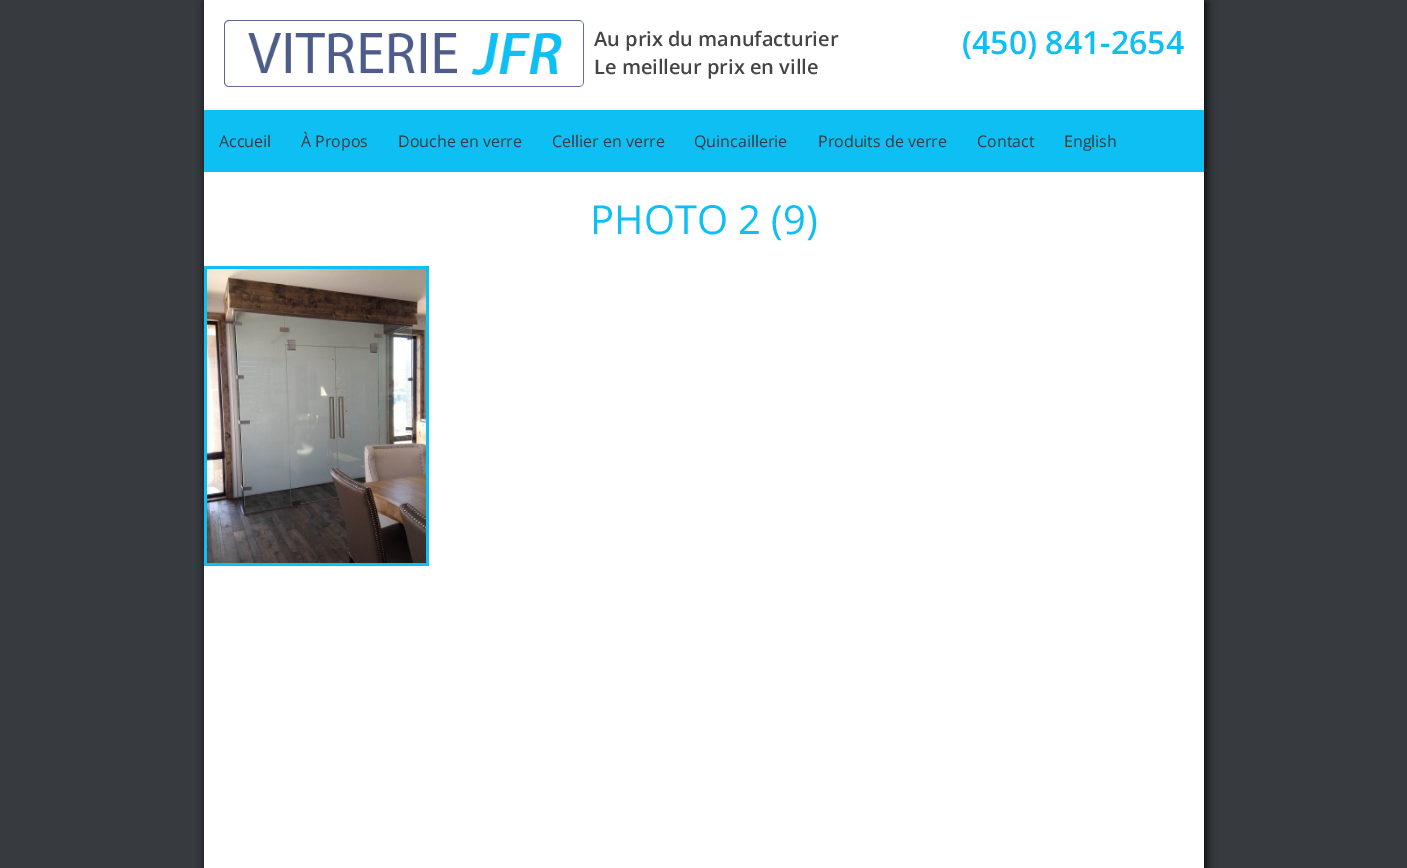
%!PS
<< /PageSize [1407 868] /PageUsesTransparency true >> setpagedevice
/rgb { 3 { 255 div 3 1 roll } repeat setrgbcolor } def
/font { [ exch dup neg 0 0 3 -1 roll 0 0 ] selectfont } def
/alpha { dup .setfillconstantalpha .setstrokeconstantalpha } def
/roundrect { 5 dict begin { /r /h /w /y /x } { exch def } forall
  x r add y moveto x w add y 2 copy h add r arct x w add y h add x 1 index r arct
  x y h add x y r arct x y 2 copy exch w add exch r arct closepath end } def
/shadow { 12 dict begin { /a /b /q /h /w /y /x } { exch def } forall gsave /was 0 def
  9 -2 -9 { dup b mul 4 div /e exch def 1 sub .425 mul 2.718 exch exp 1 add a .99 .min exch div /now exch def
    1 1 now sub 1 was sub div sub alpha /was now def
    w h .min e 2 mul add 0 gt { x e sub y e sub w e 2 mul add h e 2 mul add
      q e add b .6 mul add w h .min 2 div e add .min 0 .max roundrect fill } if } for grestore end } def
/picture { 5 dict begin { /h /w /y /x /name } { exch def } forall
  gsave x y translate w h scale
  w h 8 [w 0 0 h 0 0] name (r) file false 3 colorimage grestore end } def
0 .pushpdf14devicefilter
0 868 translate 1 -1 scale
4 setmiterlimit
55 58 63 rgb
0 0 1407 868 rectfill
0 0 0 rgb
206 2 1000 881 0 5 1 shadow
255 255 255 rgb
204 0 1000 868 rectfill
(img/1.rgb) 224 20 360 67 picture
13 191 242 rgb
204 110 1000 62 rectfill
204 266 225 300 rectfill
(img/2.rgb) 207 269 219 294 picture
/OpenSans-SemiBold 20 font
68 68 68 rgb
594 46 moveto (Au prix du manufacturier) show
594 74 moveto (Le meilleur prix en ville) show
/OpenSans-SemiBold 32 font
13 191 242 rgb
962 54 moveto (\(450\) 841-2654) show
/OpenSans-Regular 16 font
55 58 63 rgb
[
  [(Accueil) 219 147]
  [(À Propos) 301 147]
  [(Douche en verre) 398 147]
  [(Cellier en verre) 552 147]
  [(Quincaillerie) 694 147]
  [(Produits de verre) 818 147]
  [(Contact) 977 147]
  [(English) 1064 147]
] { aload pop moveto show } forall
/OpenSans-Regular 40 font
13 191 242 rgb
590 234 moveto (PHOTO 2 \(9\)) show
.poppdf14devicefilter showpage
